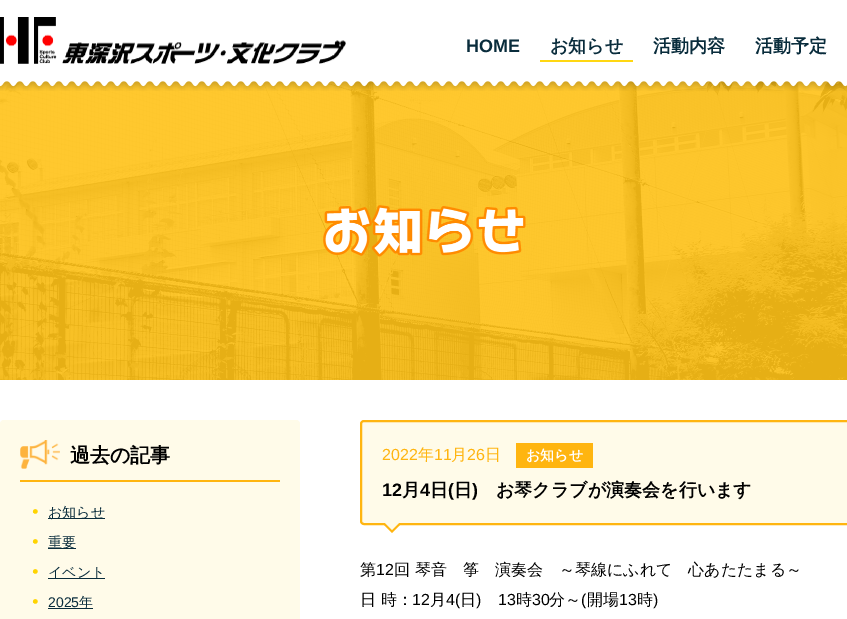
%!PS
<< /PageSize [847 619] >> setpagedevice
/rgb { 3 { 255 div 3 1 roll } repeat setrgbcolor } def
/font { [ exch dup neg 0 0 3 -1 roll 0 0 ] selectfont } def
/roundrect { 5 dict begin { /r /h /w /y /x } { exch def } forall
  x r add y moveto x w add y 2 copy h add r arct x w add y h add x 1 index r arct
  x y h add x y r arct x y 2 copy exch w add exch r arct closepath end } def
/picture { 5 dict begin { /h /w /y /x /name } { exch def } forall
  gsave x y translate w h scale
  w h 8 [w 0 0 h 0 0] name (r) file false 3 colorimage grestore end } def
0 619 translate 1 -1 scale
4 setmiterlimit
255 255 255 rgb
0 0 847 619 rectfill
(img/3.rgb) 0 81 847 299 picture
(img/1.rgb) 0 80 847 11 picture
(img/2.rgb) 0 17 346 47 picture
255 215 18 rgb
540 60 93 2 rectfill
(img/4.rgb) 323 205 203 52 picture
255 251 233 rgb
0 420 300 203 4 roundrect fill
(img/5.rgb) 20 440 40 29 picture
[
  [20 480 260 2 255 181 16]
  [48 518 57 1 9 44 60]
  [48 548 28 1 9 44 60]
  [48 578 57 1 9 44 60]
  [48 608 45 1 9 44 60]
] { aload pop rgb rectfill } forall
255 251 233 rgb
361 421 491 103 3 roundrect gsave fill grestore
255 181 16 rgb
2 setlinewidth
stroke
516 443 77 25 rectfill
382 523 moveto 402 523 lineto 392 533 lineto closepath fill
255 251 233 rgb
384 522 moveto 400 522 lineto 392 530 lineto closepath fill
/LiberationSans-Bold 18 font
9 44 60 rgb
466 52 moveto (HOME) show
/WenQuanYiZenHei-Bold 18 font
[
  [(お知らせ) 550 52]
  [(活動内容) 653 52]
  [(活動予定) 755 52]
] { aload pop moveto show } forall
/WenQuanYiZenHei-Bold 20 font
0 0 0 rgb
70 462 moveto (過去の記事) show
/WenQuanYiZenHei-Medium 30 font
255 212 0 rgb
20 522 moveto (・) show
/WenQuanYiZenHei-Medium 14 font
9 44 60 rgb
48 517 moveto (お知らせ) show
/WenQuanYiZenHei-Medium 30 font
255 212 0 rgb
20 552 moveto (・) show
/WenQuanYiZenHei-Medium 14 font
9 44 60 rgb
48 547 moveto (重要) show
/WenQuanYiZenHei-Medium 30 font
255 212 0 rgb
20 582 moveto (・) show
/WenQuanYiZenHei-Medium 14 font
9 44 60 rgb
48 577 moveto (イベント) show
/WenQuanYiZenHei-Medium 30 font
255 212 0 rgb
20 612 moveto (・) show
/LiberationSans-Regular 14 font
9 44 60 rgb
48 607 moveto (2025) show
/WenQuanYiZenHei-Medium 14 font
79 607 moveto (年) show
/LiberationSans-Regular 16 font
255 181 16 rgb
382 460 moveto (2022) show
/WenQuanYiZenHei-Medium 16 font
418 460 moveto (年) show
/LiberationSans-Regular 16 font
434 460 moveto (11) show
/WenQuanYiZenHei-Medium 16 font
451 460 moveto (月) show
/LiberationSans-Regular 16 font
467 460 moveto (26) show
/WenQuanYiZenHei-Medium 16 font
485 460 moveto (日) show
/WenQuanYiZenHei-Bold 14 font
255 255 255 rgb
526 460 moveto (お知らせ) show
/LiberationSans-Bold 18 font
0 0 0 rgb
382 496 moveto (12) show
/WenQuanYiZenHei-Bold 18 font
402 496 moveto (月) show
/LiberationSans-Bold 18 font
420 496 moveto (4) show
/WenQuanYiZenHei-Bold 18 font
430 496 moveto (日) show
/LiberationSans-Bold 18 font
448 496 moveto (\() show
/WenQuanYiZenHei-Bold 18 font
454 496 moveto (日) show
/LiberationSans-Bold 18 font
472 496 moveto (\)) show
/WenQuanYiZenHei-Bold 18 font
496 496 moveto (お琴クラブが演奏会を行います) show
/WenQuanYiZenHei-Medium 16 font
360 575 moveto (第) show
/LiberationSans-Regular 16 font
376 575 moveto (12) show
/WenQuanYiZenHei-Medium 16 font
394 575 moveto (回 琴音　筝　演奏会　～琴線にふれて　心あたたまる～) show
360 605 moveto (日 時：) show
/LiberationSans-Regular 16 font
412 605 moveto (12) show
/WenQuanYiZenHei-Medium 16 font
430 605 moveto (月) show
/LiberationSans-Regular 16 font
446 605 moveto (4\() show
/WenQuanYiZenHei-Medium 16 font
460 605 moveto (日) show
/LiberationSans-Regular 16 font
476 605 moveto (\)) show
498 605 moveto (13) show
/WenQuanYiZenHei-Medium 16 font
516 605 moveto (時) show
/LiberationSans-Regular 16 font
532 605 moveto (30) show
/WenQuanYiZenHei-Medium 16 font
549 605 moveto (分～) show
/LiberationSans-Regular 16 font
581 605 moveto (\() show
/WenQuanYiZenHei-Medium 16 font
587 605 moveto (開場) show
/LiberationSans-Regular 16 font
619 605 moveto (13) show
/WenQuanYiZenHei-Medium 16 font
637 605 moveto (時) show
/LiberationSans-Regular 16 font
653 605 moveto (\)) show
showpage
